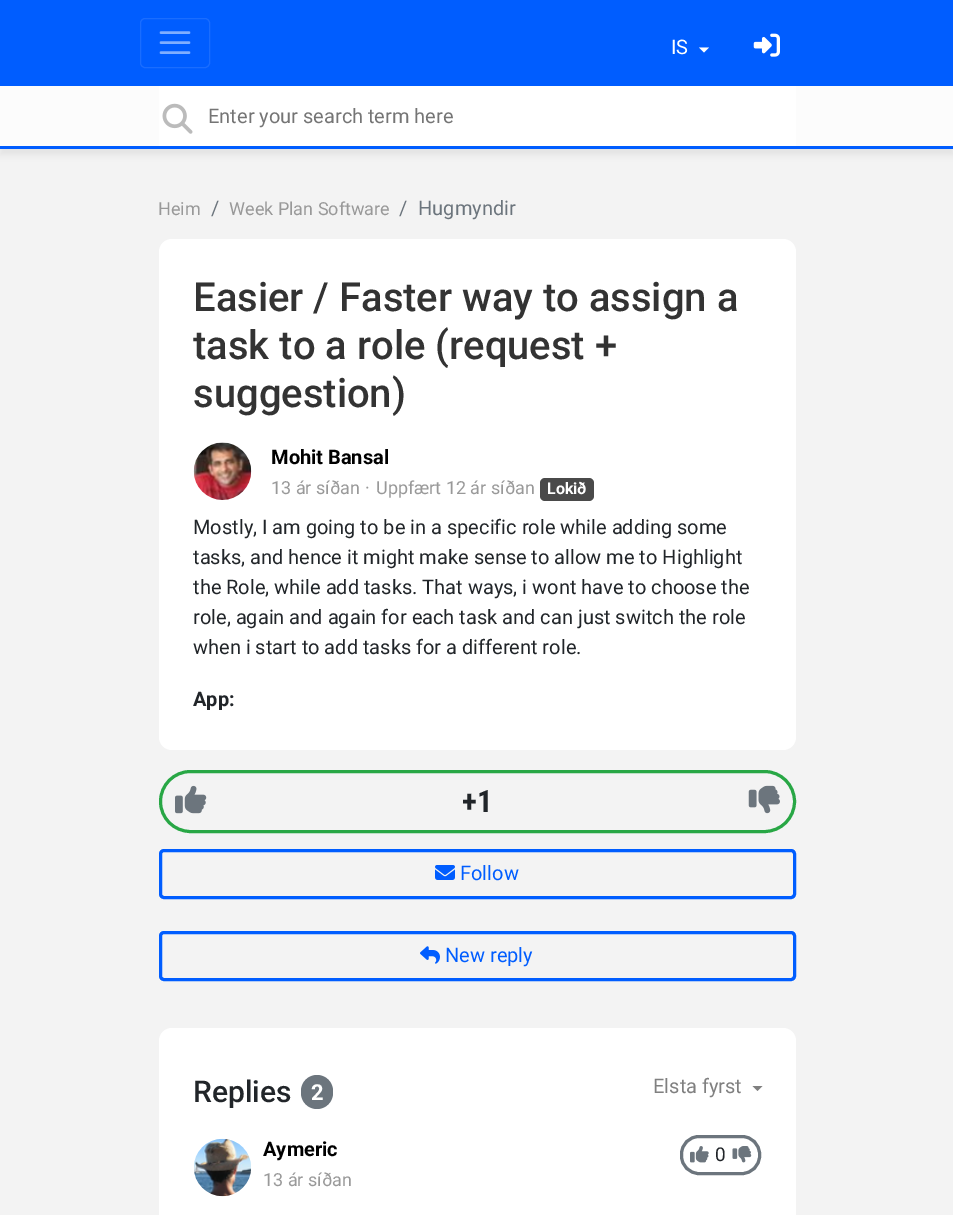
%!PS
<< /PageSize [953 1215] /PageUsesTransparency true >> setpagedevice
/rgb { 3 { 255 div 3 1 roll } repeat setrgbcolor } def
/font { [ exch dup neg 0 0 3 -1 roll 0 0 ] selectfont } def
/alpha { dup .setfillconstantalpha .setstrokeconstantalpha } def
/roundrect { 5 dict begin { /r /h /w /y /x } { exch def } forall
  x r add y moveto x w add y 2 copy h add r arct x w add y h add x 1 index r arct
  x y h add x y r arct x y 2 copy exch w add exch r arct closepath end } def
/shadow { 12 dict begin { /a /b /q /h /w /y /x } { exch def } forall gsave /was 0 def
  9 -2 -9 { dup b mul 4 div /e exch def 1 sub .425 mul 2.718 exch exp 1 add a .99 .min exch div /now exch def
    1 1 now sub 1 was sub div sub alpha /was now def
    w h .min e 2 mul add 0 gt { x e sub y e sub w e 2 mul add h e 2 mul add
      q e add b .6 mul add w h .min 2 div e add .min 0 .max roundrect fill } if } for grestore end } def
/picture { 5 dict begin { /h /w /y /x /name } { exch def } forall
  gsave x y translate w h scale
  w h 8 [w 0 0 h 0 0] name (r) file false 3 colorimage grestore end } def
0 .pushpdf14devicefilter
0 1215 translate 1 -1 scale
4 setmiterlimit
243 243 243 rgb
0 0 953 1215 rectfill
0 93 255 rgb
0 0 953 86 rectfill
26 109 255 rgb
140.5 18.5 69 49 4.5 roundrect stroke
128 174 255 rgb
2.5 setlinewidth
1 setlinecap
161 32.5 moveto 189 32.5 lineto 161 42.5 moveto 189 42.5 lineto 161 52.5 moveto 189 52.5 lineto stroke
255 255 255 rgb
699 47.5 moveto 709 47.5 lineto 704 52.5 lineto closepath fill
(img/1.rgb) 753 33 27 24 picture
100 100 100 rgb
0 93 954 62 0 3 0.1 shadow
[
  [0 86 953 60 252 252 252]
  [0 146 953 3 0 93 255]
  [159 86 637 60 255 255 255]
] { aload pop rgb rectfill } forall
(img/2.rgb) 162 103 31 31 picture
159 239 637 511 13 roundrect fill
(img/3.rgb) 193 442 59 58 picture
74 74 74 rgb
540 478 54 23 5 roundrect fill
40 167 69 rgb
3 setlinewidth
0 setlinecap
160.5 771.5 634 60 30 roundrect stroke
(img/4.rgb) 175 785 32 29 picture
(img/5.rgb) 748 785 32 29 picture
0 93 255 rgb
160.5 850.5 634 47 3.5 roundrect stroke
(img/6.rgb) 435 865 20 15 picture
160.5 932.5 634 47 3.5 roundrect stroke
(img/7.rgb) 420 946 20 18 picture
255 255 255 rgb
159 1028 637 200 13 roundrect fill
108 117 125 rgb
301 1075 32 34 16 roundrect fill
128 128 128 rgb
752.5 1086 moveto 762.5 1086 lineto 757.5 1091 lineto closepath fill
(img/8.rgb) 194 1138 57 59 picture
108 117 125 rgb
681.5 1136.5 78 37 17.5 roundrect stroke
(img/9.rgb) 690 1146 19 17 picture
(img/10.rgb) 732 1146 20 17 picture
/Roboto-Regular 20 font
255 255 255 rgb
671 54 moveto (IS) show
117 117 117 rgb
208 123 moveto (Enter your search term here) show
/Roboto-Regular 18 font
153 153 153 rgb
158 215 moveto (Heim) show
/Roboto-Regular 20 font
108 117 125 rgb
211 215 moveto (/) show
/Roboto-Regular 18 font
153 153 153 rgb
229 215 moveto (Week Plan Software) show
/Roboto-Regular 20 font
108 117 125 rgb
399 215 moveto (/) show
418 215 moveto (Hugmyndir) show
/Roboto-Medium 40 font
51 51 51 rgb
[
  [(Easier / Faster way to assign a) 193 311]
  [(task to a role \(request +) 193 359]
  [(suggestion\)) 193 407]
] { aload pop moveto show } forall
/Roboto-Bold 20 font
0 0 0 rgb
271 464 moveto (Mohit Bansal) show
/Roboto-Regular 18 font
153 153 153 rgb
[
  [(13 ár síðan) 271 494]
  [(·) 365 494]
  [(Uppfært 12 ár síðan) 376 494]
] { aload pop moveto show } forall
/Roboto-Bold 16 font
255 255 255 rgb
547 494 moveto (Lokið) show
/Roboto-Regular 20 font
33 37 41 rgb
[
  [(Mostly, I am going to be in a specific role while adding some) 193 534]
  [(tasks, and hence it might make sense to allow me to Highlight) 193 564]
  [(the Role, while add tasks. That ways, i wont have to choose the) 193 594]
  [(role, again and again for each task and can just switch the role) 193 624]
  [(when i start to add tasks for a different role.) 193 654]
] { aload pop moveto show } forall
/Roboto-Bold 20 font
193 706 moveto (App:) show
/RobotoCondensed-Bold 31 font
462 812 moveto (+1) show
/Roboto-Regular 20 font
0 93 255 rgb
460 880 moveto (Follow) show
445 962 moveto (New reply) show
/Roboto-Medium 30 font
33 37 41 rgb
193 1102 moveto (Replies) show
/Roboto-Bold 22 font
255 255 255 rgb
311 1100 moveto (2) show
/Roboto-Regular 20 font
128 128 128 rgb
653 1093 moveto (Elsta fyrst) show
/Roboto-Bold 20 font
0 0 0 rgb
263 1156 moveto (Aymeric) show
/Roboto-Regular 18 font
153 153 153 rgb
263 1186 moveto (13 ár síðan) show
/Roboto-Regular 19 font
33 37 41 rgb
715 1161 moveto (0) show
.poppdf14devicefilter showpage
